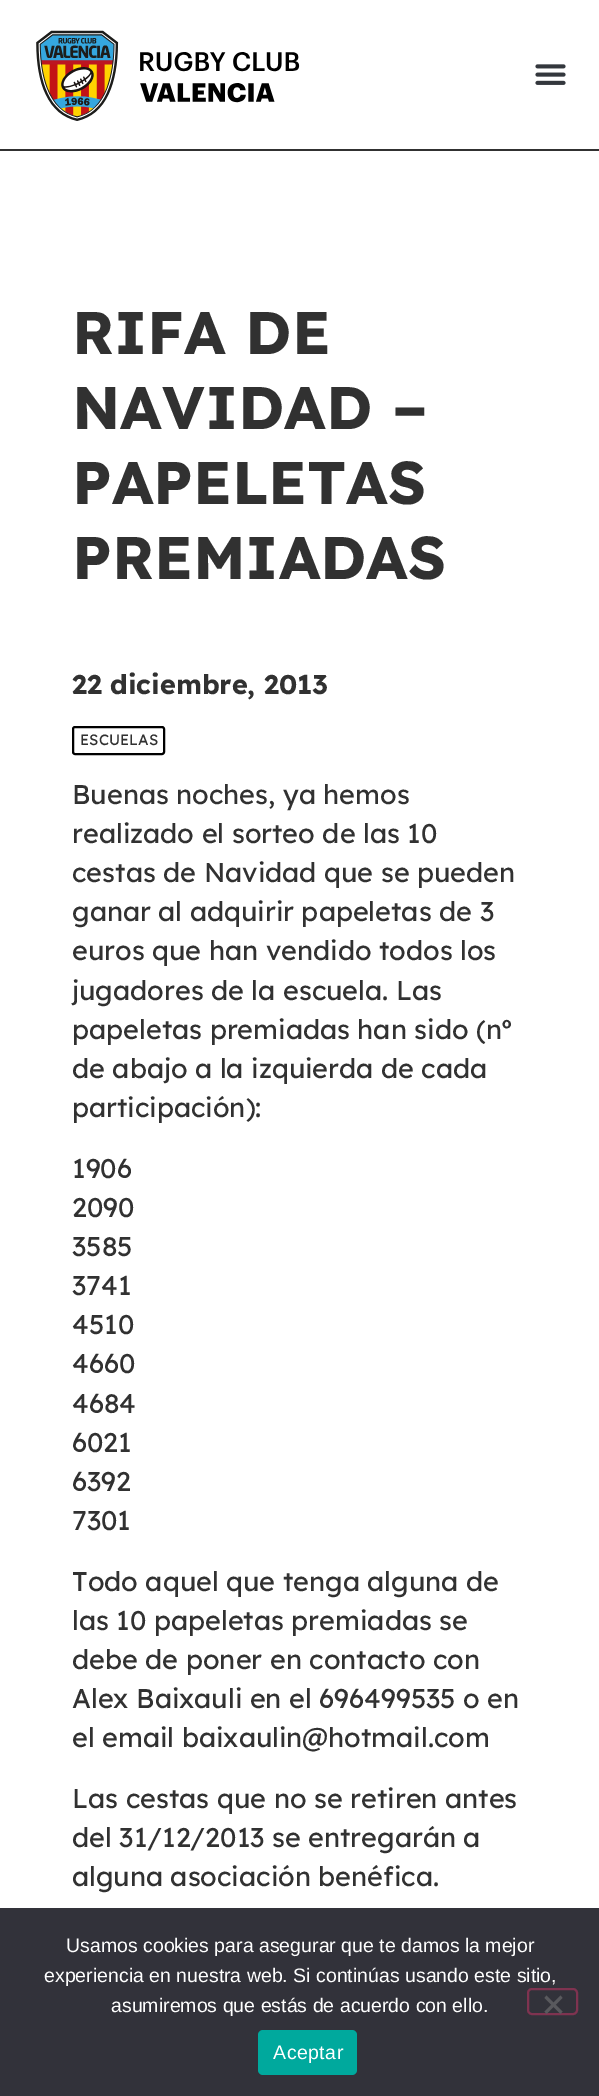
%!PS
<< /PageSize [599 2096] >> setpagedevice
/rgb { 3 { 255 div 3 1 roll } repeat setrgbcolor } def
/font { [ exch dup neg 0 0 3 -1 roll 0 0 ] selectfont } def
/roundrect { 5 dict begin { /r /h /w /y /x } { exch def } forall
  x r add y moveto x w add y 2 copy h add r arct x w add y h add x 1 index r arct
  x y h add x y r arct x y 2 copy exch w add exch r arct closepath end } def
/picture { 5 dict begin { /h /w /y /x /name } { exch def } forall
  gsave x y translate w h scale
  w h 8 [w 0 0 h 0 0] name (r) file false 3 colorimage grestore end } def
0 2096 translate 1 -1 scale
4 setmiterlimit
255 255 255 rgb
0 0 599 2096 rectfill
49 49 49 rgb
0 149 599 2 rectfill
(img/1.rgb) 36 30 264 91 picture
(img/2.rgb) 535 64 31 21 picture
0 0 0 rgb
2 setlinewidth
73 727 91 27 2 roundrect stroke
50 50 58 rgb
0 1908 599 188 rectfill
127 51 80 rgb
528 1989 49 25 4 roundrect stroke
89 89 93 rgb
560.5 1995.5 moveto 562.5 1998 lineto 546.5 2014 lineto 544.5 2011.5 lineto closepath fill
544.5 1998 moveto 546.5 1995.5 lineto 562.5 2011.5 lineto 560.5 2014 lineto closepath fill
0 169 157 rgb
258 2030 99 45 5 roundrect fill
/Lexend-Bold 60 font
49 49 49 rgb
[
  [(RIFA DE) 72 354]
  [(NAVIDAD –) 72 429]
  [(PAPELETAS) 72 504]
  [(PREMIADAS) 72 579]
] { aload pop moveto show } forall
/Lexend-Bold 27 font
72 694 moveto (22 diciembre, 2013) show
/Lexend-Regular 15 font
80 745 moveto (ESCUELAS) show
/Lexend-Regular 27 font
[
  [(Buenas noches, ya hemos) 72 804]
  [(realizado el sorteo de las 10) 72 843]
  [(cestas de Navidad que se pueden) 72 882]
  [(ganar al adquirir papeletas de 3) 72 921]
  [(euros que han vendido todos los) 72 960]
  [(jugadores de la escuela. Las) 72 1000]
  [(papeletas premiadas han sido \(nº) 72 1039]
  [(de abajo a la izquierda de cada) 72 1078]
  [(participación\):) 72 1117]
  [(1906) 72 1178]
  [(2090) 72 1217]
  [(3585) 72 1256]
  [(3741) 72 1295]
  [(4510) 72 1334]
  [(4660) 72 1373]
  [(4684) 72 1413]
  [(6021) 72 1452]
  [(6392) 72 1491]
  [(7301) 72 1530]
  [(Todo aquel que tenga alguna de) 72 1591]
  [(las 10 papeletas premiadas se) 72 1630]
  [(debe de poner en contacto con) 72 1669]
  [(Alex Baixauli en el 696499535 o en) 72 1708]
  [(el email baixaulin@hotmail.com) 72 1747]
  [(Las cestas que no se retiren antes) 72 1808]
  [(del 31/12/2013 se entregarán a) 72 1847]
  [(alguna asociación benéfica.) 72 1886]
] { aload pop moveto show } forall
/LiberationSans-Regular 19.5 font
255 255 255 rgb
[
  [(Usamos cookies para asegurar que te damos la mejor) 66 1952]
  [(experiencia en nuestra web. Si continúas usando este sitio,) 44 1982]
  [(asumiremos que estás de acuerdo con ello.) 111 2012]
] { aload pop moveto show } forall
273 2059 moveto 0.5 0 (Aceptar) ashow
showpage
